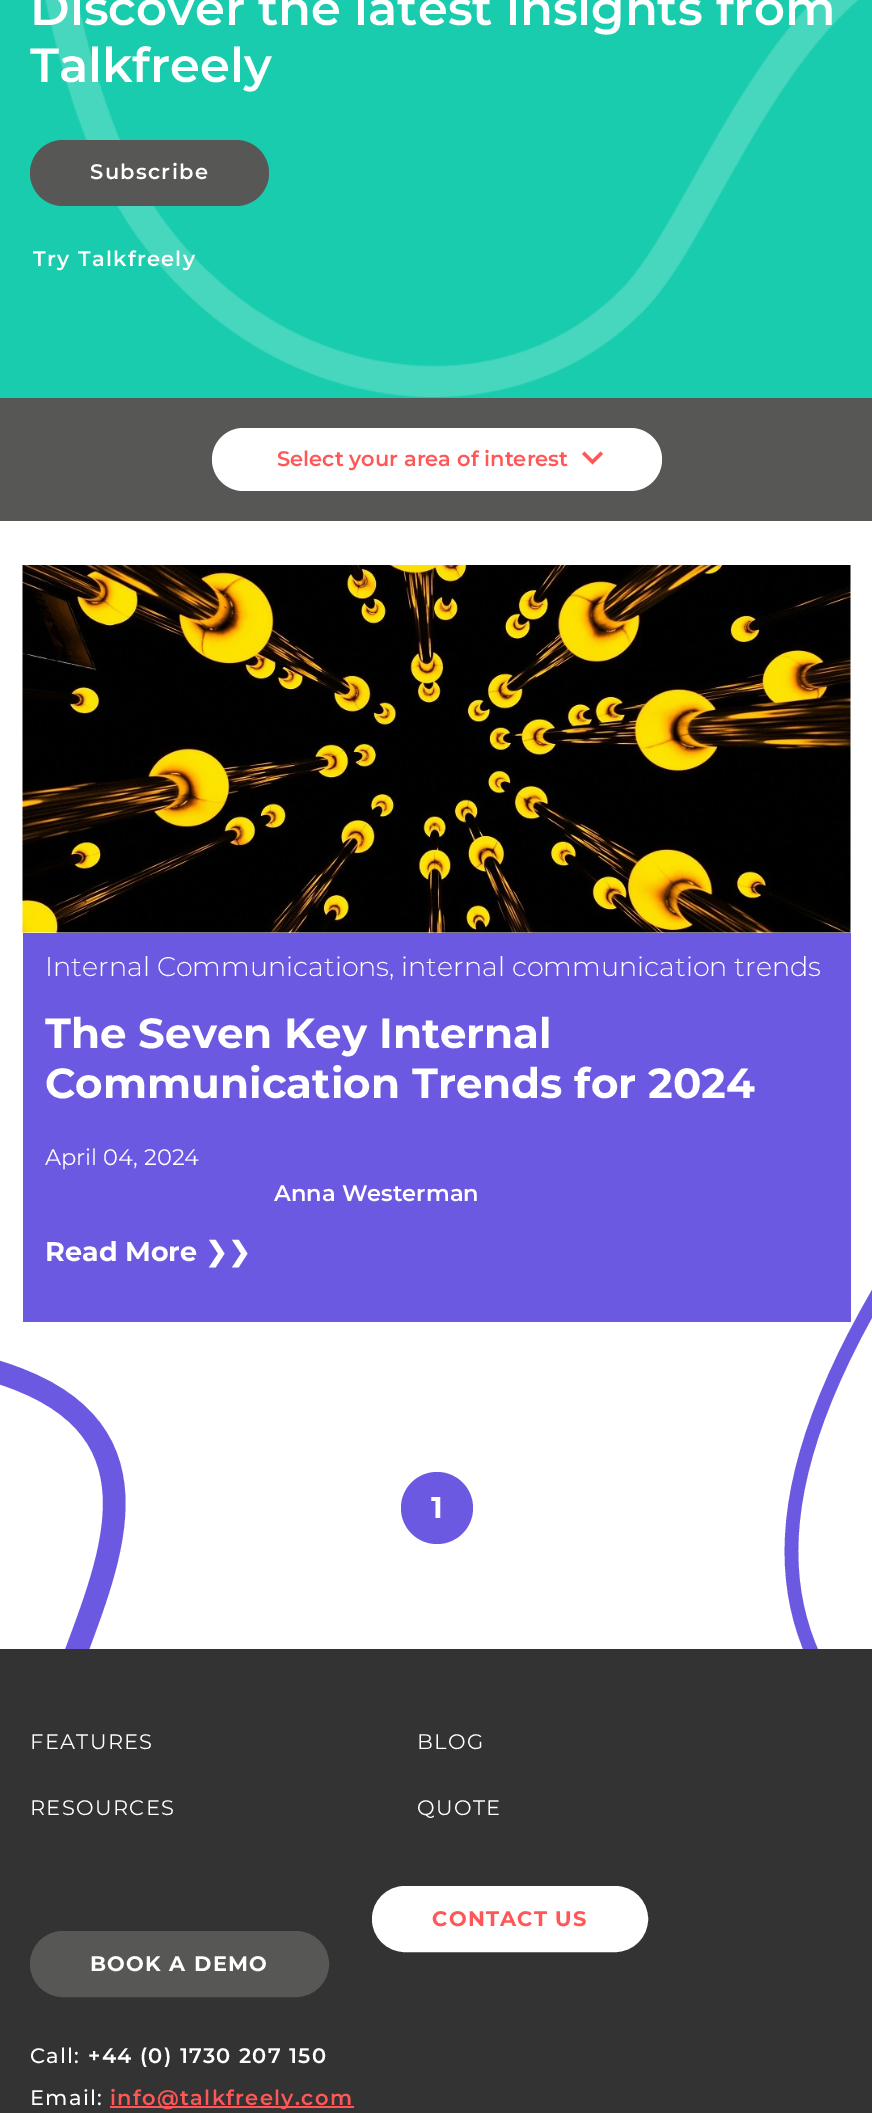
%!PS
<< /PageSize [872 2113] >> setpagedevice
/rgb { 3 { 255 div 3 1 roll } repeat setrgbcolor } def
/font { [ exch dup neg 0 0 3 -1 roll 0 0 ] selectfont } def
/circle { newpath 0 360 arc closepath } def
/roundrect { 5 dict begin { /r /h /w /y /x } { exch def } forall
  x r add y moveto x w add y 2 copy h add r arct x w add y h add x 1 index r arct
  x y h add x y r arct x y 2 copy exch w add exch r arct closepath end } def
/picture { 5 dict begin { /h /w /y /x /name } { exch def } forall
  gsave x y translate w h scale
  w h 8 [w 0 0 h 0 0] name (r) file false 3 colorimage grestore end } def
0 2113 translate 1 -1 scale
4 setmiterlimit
255 255 255 rgb
0 0 872 2113 rectfill
25 204 174 rgb
0 0 872 398 rectfill
(img/1.rgb) 45 0 814 397 picture
87 87 86 rgb
30 140 239 66 33 roundrect fill
0 398 872 123 rectfill
255 255 255 rgb
212 428 450 63 31.5 roundrect fill
255 87 87 rgb
592.5 464.5 moveto 582 454 lineto 584.5 451.5 lineto 592.5 459.5 lineto 600.5 451.5 lineto 603 454 lineto closepath fill
(img/2.rgb) 22 565 829 368 picture
gsave
716 1286 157 363 rectclip
108 89 226 rgb
13.6 setlinewidth
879 1291.5 moveto 736.5 1535.5 788.5 1660 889 1760 curveto 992 1852.5 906 1946 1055.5 2006.5 curveto stroke
grestore
108 89 226 rgb
23 933 828 389 rectfill
437 1508 36 circle fill
gsave
0 1320 321 329 rectclip
22.5 setlinewidth
-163 1331 moveto -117 1338.5 -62.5 1352.5 4 1374 curveto 345 1486.5 -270 1924.5 318.5 1778 curveto stroke
grestore
52 51 51 rgb
0 1649 872 464 rectfill
255 255 255 rgb
373.5 1887.5 273 63 31.5 roundrect gsave fill grestore
3 setlinewidth
stroke
87 87 86 rgb
31.5 1932.5 296 63 31.5 roundrect gsave fill grestore
stroke
255 87 87 rgb
110 2106 244 2 rectfill
/Montserrat-SemiBold 48 font
255 255 255 rgb
30 25 moveto (Discover the latest insights from) show
30 82 moveto (Talkfreely) show
/Montserrat-SemiBold 21 font
90 179 moveto 1.3 0 (Subscribe) ashow
33 266 moveto 1.3 0 (Try Talkfreely) ashow
255 87 87 rgb
277 466 moveto (Select your area of interest) show
/Montserrat-Light 27 font
255 255 255 rgb
45 976 moveto (Internal Communications,) show
401 976 moveto (internal communication trends) show
/Montserrat-Bold 42 font
45 1048 moveto (The Seven Key Internal) show
45 1098 moveto (Communication Trends for 2024) show
/Montserrat-Regular 22.5 font
45 1165 moveto (April 04, 2024) show
/Montserrat-SemiBold 22.5 font
274 1201 moveto (Anna Westerman) show
/Montserrat-Bold 27 font
45 1261 moveto (Read More) show
/DejaVuSans-Bold 27 font
205 1261 moveto (❯❯) show
/Montserrat-Bold 30 font
431 1518 moveto (1) show
/Montserrat-Regular 21 font
30 1749 moveto 1.3 0 (FEATURES) ashow
417 1749 moveto 1.3 0 (BLOG) ashow
30 1815 moveto 1.3 0 (RESOURCES) ashow
417 1815 moveto 1.3 0 (QUOTE) ashow
/Montserrat-Bold 21 font
255 87 87 rgb
432 1926 moveto 1.3 0 (CONTACT US) ashow
255 255 255 rgb
90 1971 moveto 1.3 0 (BOOK A DEMO) ashow
/Montserrat-Medium 21 font
30 2063 moveto 1.3 0 (Call:) ashow
/Montserrat-SemiBold 21 font
88 2063 moveto 1.3 0 (+44 \(0\) 1730 207 150) ashow
/Montserrat-Medium 21 font
30 2105 moveto 1.3 0 (Email:) ashow
/Montserrat-SemiBold 21 font
255 87 87 rgb
110 2105 moveto 1.3 0 (info@talkfreely.com) ashow
showpage
